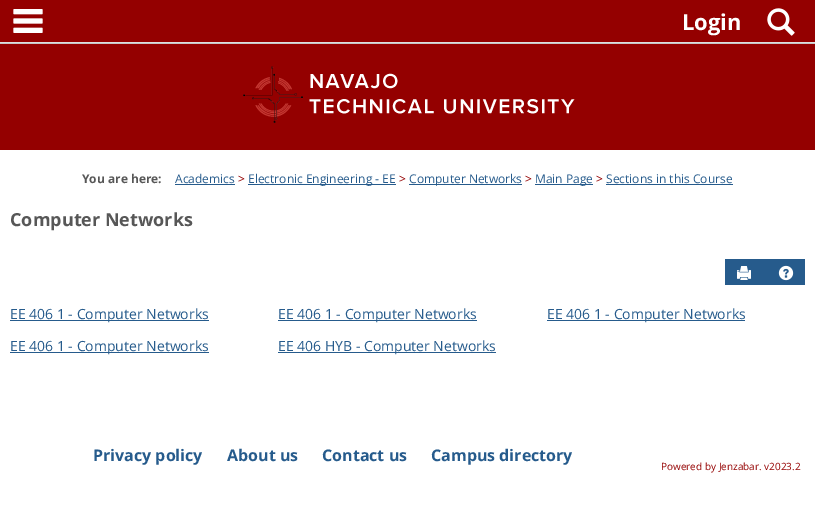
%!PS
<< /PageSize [815 511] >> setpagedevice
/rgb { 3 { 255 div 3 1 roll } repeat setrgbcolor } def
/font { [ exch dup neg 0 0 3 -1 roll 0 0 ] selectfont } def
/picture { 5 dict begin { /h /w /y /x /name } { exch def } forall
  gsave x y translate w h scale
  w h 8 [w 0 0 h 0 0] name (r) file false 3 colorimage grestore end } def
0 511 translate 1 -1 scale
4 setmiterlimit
255 255 255 rgb
0 0 815 511 rectfill
148 0 0 rgb
0 0 815 150 rectfill
(img/1.rgb) 13 9 30 24 picture
(img/2.rgb) 767 8 28 28 picture
197 197 197 rgb
0 43 815 1 rectfill
(img/3.rgb) 243 66 332 57 picture
[
  [0 42 815 1 222 222 222]
  [175 184 60 1 38 91 140]
  [248 184 148 1 38 91 140]
  [409 184 113 1 38 91 140]
  [535 184 58 1 38 91 140]
  [606 184 127 1 38 91 140]
  [725 259 80 26 38 91 140]
] { aload pop rgb rectfill } forall
(img/4.rgb) 737 266 14 14 picture
(img/5.rgb) 778 265 16 16 picture
[
  [10 320 199 1 38 91 140]
  [278 320 199 1 38 91 140]
  [547 320 198 1 38 91 140]
  [10 352 199 1 38 91 140]
  [278 352 218 1 38 91 140]
] { aload pop rgb rectfill } forall
/OpenSans-Bold 22 font
255 255 255 rgb
682 30 moveto (Login) show
/OpenSans-Bold 12 font
87 87 87 rgb
82 183 moveto (You are here:) show
/OpenSans-Regular 12 font
38 91 140 rgb
175 183 moveto (Academics) show
148 0 0 rgb
238 183 moveto (>) show
38 91 140 rgb
248 183 moveto (Electronic Engineering - EE) show
148 0 0 rgb
399 183 moveto (>) show
38 91 140 rgb
409 183 moveto (Computer Networks) show
148 0 0 rgb
525 183 moveto (>) show
38 91 140 rgb
535 183 moveto (Main Page) show
148 0 0 rgb
596 183 moveto (>) show
38 91 140 rgb
606 183 moveto (Sections in this Course) show
/OpenSans-Bold 18 font
87 87 87 rgb
10 226 moveto (Computer Networks) show
/OpenSans-Regular 14 font
38 91 140 rgb
[
  [(EE 406 1 - Computer Networks) 10 319]
  [(EE 406 1 - Computer Networks) 278 319]
  [(EE 406 1 - Computer Networks) 547 319]
  [(EE 406 1 - Computer Networks) 10 351]
  [(EE 406 HYB - Computer Networks) 278 351]
] { aload pop moveto show } forall
/OpenSans-Bold 16 font
[
  [(Privacy policy) 93 461]
  [(About us) 227 461]
  [(Contact us) 322 461]
  [(Campus directory) 431 461]
] { aload pop moveto show } forall
/OpenSans-Regular 10 font
148 0 0 rgb
661 470 moveto (Powered by Jenzabar. v2023.2) show
showpage
